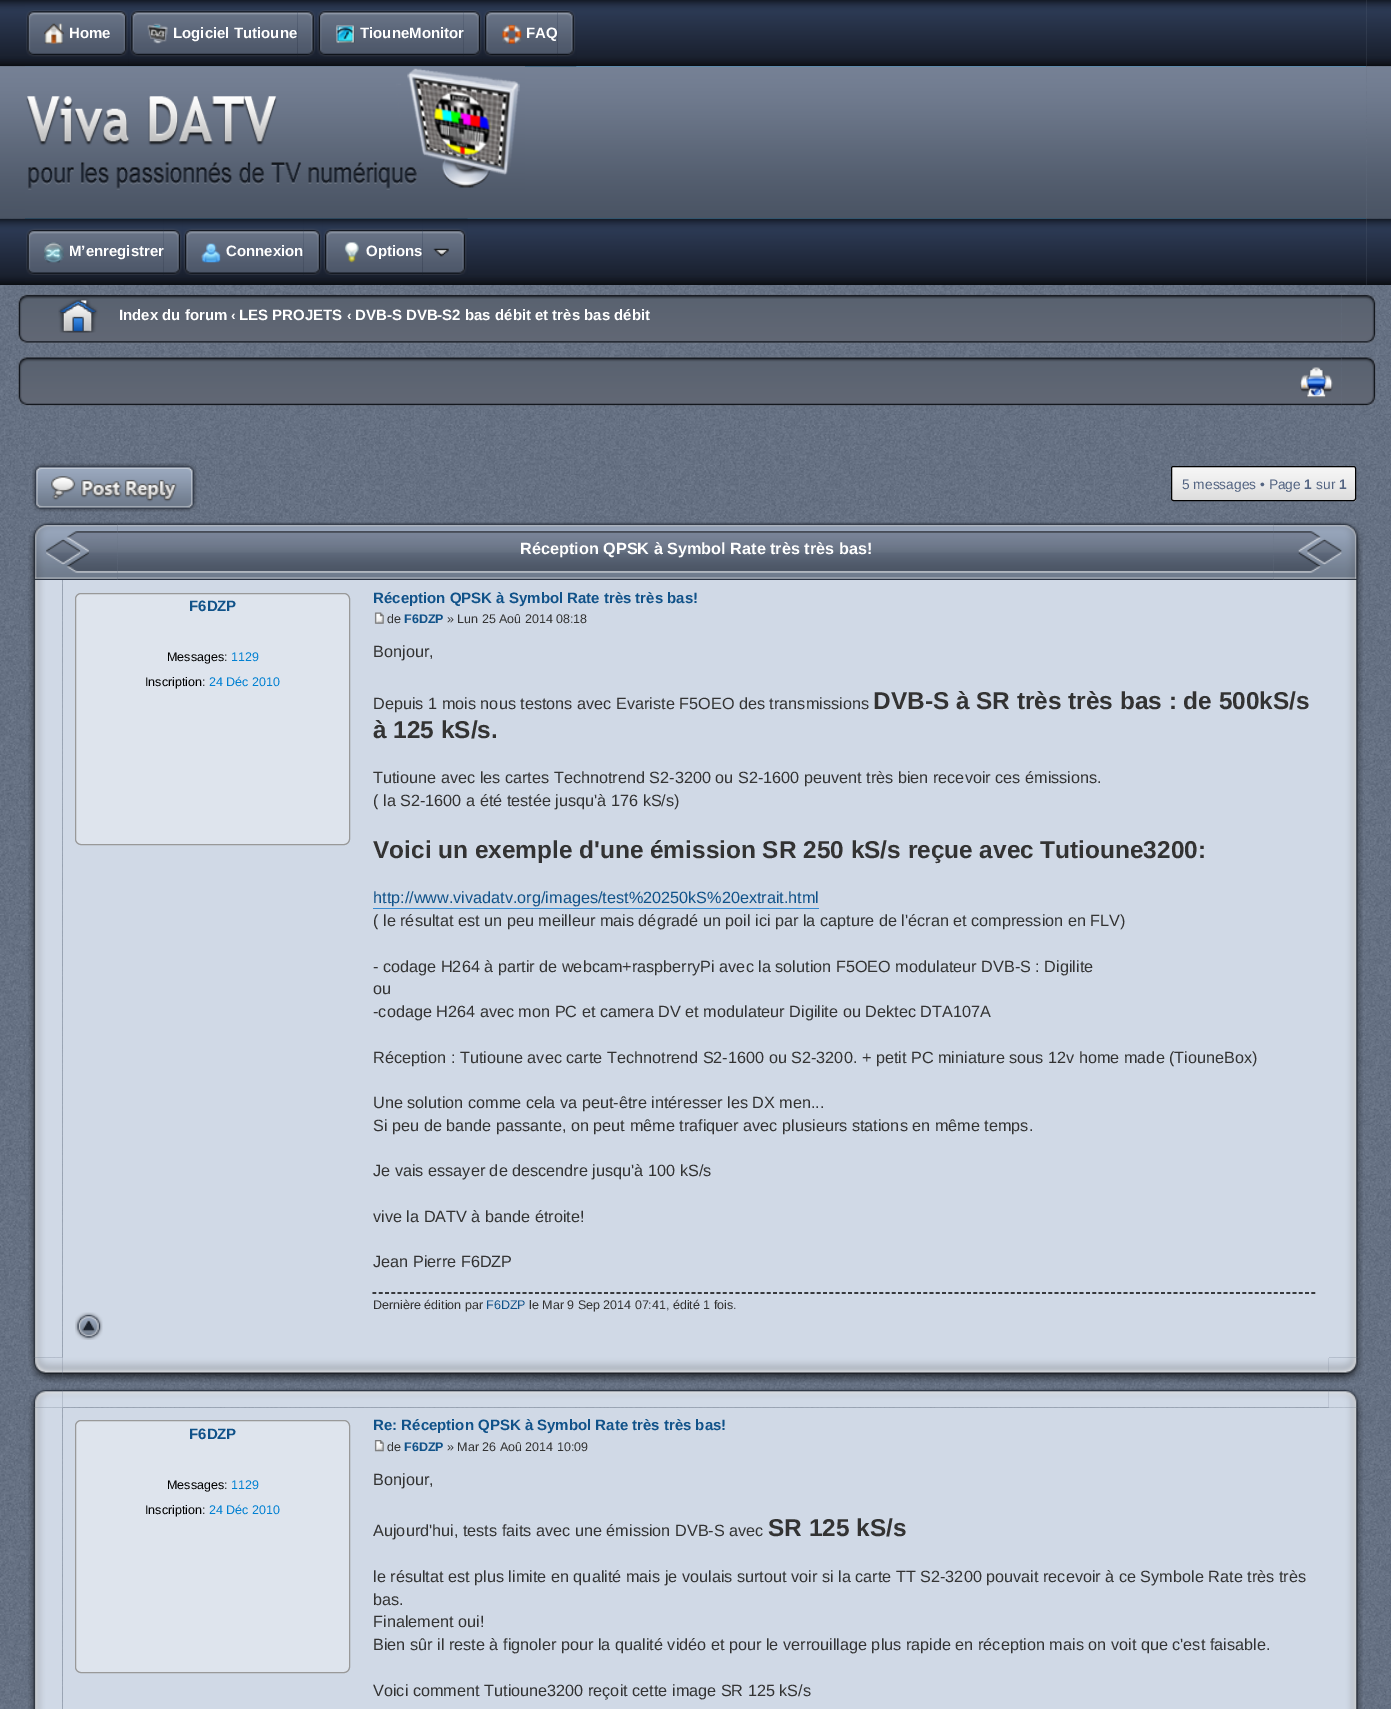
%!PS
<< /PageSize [1391 1709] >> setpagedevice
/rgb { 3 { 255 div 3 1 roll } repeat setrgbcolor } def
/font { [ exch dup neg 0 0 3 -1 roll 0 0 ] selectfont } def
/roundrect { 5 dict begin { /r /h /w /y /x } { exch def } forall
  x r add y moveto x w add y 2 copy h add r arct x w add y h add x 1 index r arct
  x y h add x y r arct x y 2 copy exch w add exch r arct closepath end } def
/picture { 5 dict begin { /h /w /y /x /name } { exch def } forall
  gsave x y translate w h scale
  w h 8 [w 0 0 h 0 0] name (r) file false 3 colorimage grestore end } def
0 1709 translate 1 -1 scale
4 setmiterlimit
255 255 255 rgb
0 0 1391 1709 rectfill
(img/1.rgb) 0 0 1391 1709 picture
(img/2.rgb) 0 0 25 67 picture
(img/3.rgb) 1366 0 25 67 picture
(img/4.rgb) 25 0 1342 67 picture
(img/19.rgb) 25 66 1341 153 picture
(img/5.rgb) 110 10 19 57 picture
(img/6.rgb) 25 10 85 57 picture
(img/7.rgb) 44 23 20 21 picture
(img/8.rgb) 297 10 20 57 picture
(img/9.rgb) 128 10 170 57 picture
(img/10.rgb) 147 23 21 21 picture
(img/11.rgb) 463 10 20 57 picture
(img/12.rgb) 316 10 148 57 picture
(img/13.rgb) 335 25 20 19 picture
(img/14.rgb) 557 10 20 57 picture
(img/15.rgb) 482 10 76 57 picture
(img/16.rgb) 502 24 20 20 picture
(img/17.rgb) 0 66 25 153 picture
(img/18.rgb) 1366 66 25 153 picture
(img/20.rgb) 25 66 500 124 picture
(img/21.rgb) 0 218 25 67 picture
(img/22.rgb) 1366 218 25 67 picture
(img/23.rgb) 25 218 1342 67 picture
(img/24.rgb) 163 218 20 57 picture
(img/25.rgb) 25 218 139 57 picture
(img/26.rgb) 44 242 20 21 picture
(img/24.rgb) 303 218 20 57 picture
(img/27.rgb) 182 218 122 57 picture
(img/28.rgb) 201 243 20 20 picture
(img/29.rgb) 422 218 46 57 picture
(img/30.rgb) 322 218 101 57 picture
(img/31.rgb) 344 242 15 21 picture
(img/32.rgb) 18 294 32 50 picture
(img/33.rgb) 1341 294 35 50 picture
(img/34.rgb) 50 294 1292 50 picture
(img/35.rgb) 58 298 40 35 picture
(img/36.rgb) 18 356 32 50 picture
(img/37.rgb) 1341 356 35 50 picture
(img/38.rgb) 50 356 1292 50 picture
(img/39.rgb) 1300 367 33 31 picture
(img/40.rgb) 32 463 165 49 picture
(img/41.rgb) 1171 466 186 36 picture
0 0 0 rgb
1171.5 466.5 184 34 2 roundrect stroke
(img/42.rgb) 28 522 90 58 picture
(img/43.rgb) 1273 522 90 58 picture
(img/44.rgb) 117 522 1157 58 picture
(img/45.rgb) 28 580 35 778 picture
(img/46.rgb) 1329 580 34 778 picture
208 217 230 rgb
63 580 1266 778 rectfill
222 228 237 rgb
75.5 593.5 274 251 5.5 roundrect gsave fill grestore
153 153 153 rgb
stroke
(img/47.rgb) 374 612 10 12 picture
54 138 210 rgb
373 908 446 1 rectfill
0 0 0 rgb
1.2 setlinewidth
[3.75 2.51] 0 setdash
372.5 1293 moveto 1316 1293 lineto stroke
(img/48.rgb) 75 1312 28 28 picture
(img/49.rgb) 28 1357 35 26 picture
(img/50.rgb) 1328 1357 35 26 picture
(img/51.rgb) 62 1357 1267 26 picture
(img/52.rgb) 28 1388 35 20 picture
(img/53.rgb) 1328 1388 35 20 picture
(img/55.rgb) 28 1407 35 302 picture
(img/56.rgb) 1328 1407 35 302 picture
(img/54.rgb) 62 1388 1267 20 picture
208 217 230 rgb
63 1408 1266 301 rectfill
222 228 237 rgb
75.5 1420.5 274 252 5.5 roundrect gsave fill grestore
153 153 153 rgb
1 setlinewidth
[] 0 setdash
stroke
(img/57.rgb) 374 1440 10 12 picture
/LiberationSans-Bold 15 font
255 255 255 rgb
[
  [(Home) 69 38]
  [(Logiciel Tutioune) 173 38]
  [(TiouneMonitor) 360 38]
  [(FAQ) 526 38]
  [(M’enregistrer) 69 256]
  [(Connexion) 226 256]
  [(Options) 366 256]
  [(Index du forum) 119 320]
] { aload pop moveto show } forall
/LiberationSans-Bold 13.75 font
231 320 moveto (‹) show
/LiberationSans-Bold 15 font
239 320 moveto (LES PROJETS) show
/LiberationSans-Bold 13.75 font
347 320 moveto (‹) show
/LiberationSans-Bold 15 font
355 320 moveto (DVB-S DVB-S2 bas débit et très bas débit) show
/LiberationSans-Regular 13.75 font
83 100 130 rgb
1182 489 moveto (5 messages • Page) show
/LiberationSans-Bold 13.75 font
1304 489 moveto (1) show
/LiberationSans-Regular 13.75 font
1316 489 moveto (sur) show
/LiberationSans-Bold 13.75 font
1339 489 moveto (1) show
/LiberationSans-Bold 16.25 font
255 255 255 rgb
520 554 moveto (Réception QPSK à Symbol Rate très très bas!) show
/LiberationSans-Bold 15 font
16 82 137 rgb
189 611 moveto (F6DZP) show
/LiberationSans-Regular 12.5 font
0 0 0 rgb
167 661 moveto (Messages:) show
0 128 210 rgb
231 661 moveto (1129) show
0 0 0 rgb
145 686 moveto (Inscription:) show
0 128 210 rgb
209 686 moveto (24 Déc 2010) show
/LiberationSans-Bold 15 font
16 82 137 rgb
373 603 moveto (Réception QPSK à Symbol Rate très très bas!) show
/LiberationSans-Regular 12.5 font
51 51 51 rgb
387 623 moveto (de) show
/LiberationSans-Bold 12.5 font
16 82 137 rgb
404 623 moveto (F6DZP) show
/LiberationSans-Regular 12.5 font
51 51 51 rgb
447 623 moveto (» Lun 25 Aoû 2014 08:18) show
/LiberationSans-Regular 16.25 font
373 657 moveto (Bonjour,) show
373 709 moveto (Depuis 1 mois nous testons avec Evariste F5OEO des transmissions) show
/LiberationSans-Bold 24.4 font
873 709 moveto (DVB-S à SR très très bas : de 500kS/s) show
373 738 moveto (à 125 kS/s.) show
/LiberationSans-Regular 16.25 font
373 783 moveto (Tutioune avec les cartes Technotrend S2-3200 ou S2-1600 peuvent très bien recevoir ces émissions.) show
373 806 moveto (\( la S2-1600 a été testée jusqu'à 176 kS/s\)) show
/LiberationSans-Bold 24.4 font
373 858 moveto (Voici un exemple d'une émission SR 250 kS/s reçue avec Tutioune3200:) show
/LiberationSans-Regular 16.25 font
16 82 137 rgb
373 903 moveto (http://www.vivadatv.org/images/test%20250kS%20extrait.html) show
51 51 51 rgb
[
  [(\( le résultat est un peu meilleur mais dégradé un poil ici par la capture de l'écran et compression en FLV\)) 373 926]
  [(- codage H264 à partir de webcam+raspberryPi avec la solution F5OEO modulateur DVB-S : Digilite) 373 972]
  [(ou) 373 994]
  [(-codage H264 avec mon PC et camera DV et modulateur Digilite ou Dektec DTA107A) 373 1017]
  [(Réception : Tutioune avec carte Technotrend S2-1600 ou S2-3200. + petit PC miniature sous 12v home made \(TiouneBox\)) 373 1063]
  [(Une solution comme cela va peut-être intéresser les DX men...) 373 1108]
  [(Si peu de bande passante, on peut même trafiquer avec plusieurs stations en même temps.) 373 1131]
  [(Je vais essayer de descendre jusqu'à 100 kS/s) 373 1176]
  [(vive la DATV à bande étroite!) 373 1222]
  [(Jean Pierre F6DZP) 373 1267]
] { aload pop moveto show } forall
/LiberationSans-Regular 12.5 font
373 1309 moveto (Dernière édition par) show
16 82 137 rgb
486 1309 moveto (F6DZP) show
51 51 51 rgb
529 1309 moveto (le Mar 9 Sep 2014 07:41, édité 1 fois.) show
/LiberationSans-Bold 15 font
16 82 137 rgb
189 1439 moveto (F6DZP) show
/LiberationSans-Regular 12.5 font
0 0 0 rgb
167 1489 moveto (Messages:) show
0 128 210 rgb
231 1489 moveto (1129) show
0 0 0 rgb
145 1514 moveto (Inscription:) show
0 128 210 rgb
209 1514 moveto (24 Déc 2010) show
/LiberationSans-Bold 15 font
16 82 137 rgb
373 1430 moveto (Re: Réception QPSK à Symbol Rate très très bas!) show
/LiberationSans-Regular 12.5 font
51 51 51 rgb
387 1451 moveto (de) show
/LiberationSans-Bold 12.5 font
16 82 137 rgb
404 1451 moveto (F6DZP) show
/LiberationSans-Regular 12.5 font
51 51 51 rgb
447 1451 moveto (» Mar 26 Aoû 2014 10:09) show
/LiberationSans-Regular 16.25 font
373 1485 moveto (Bonjour,) show
373 1536 moveto (Aujourd'hui, tests faits avec une émission DVB-S avec) show
/LiberationSans-Bold 24.4 font
768 1536 moveto (SR 125 kS/s) show
/LiberationSans-Regular 16.25 font
[
  [(le résultat est plus limite en qualité mais je voulais surtout voir si la carte TT S2-3200 pouvait recevoir à ce Symbole Rate très très) 373 1582]
  [(bas.) 373 1605]
  [(Finalement oui!) 373 1627]
  [(Bien sûr il reste à fignoler pour la qualité vidéo et pour le verrouillage plus rapide en réception mais on voit que c'est faisable.) 373 1650]
  [(Voici comment Tutioune3200 reçoit cette image SR 125 kS/s) 373 1696]
] { aload pop moveto show } forall
showpage
